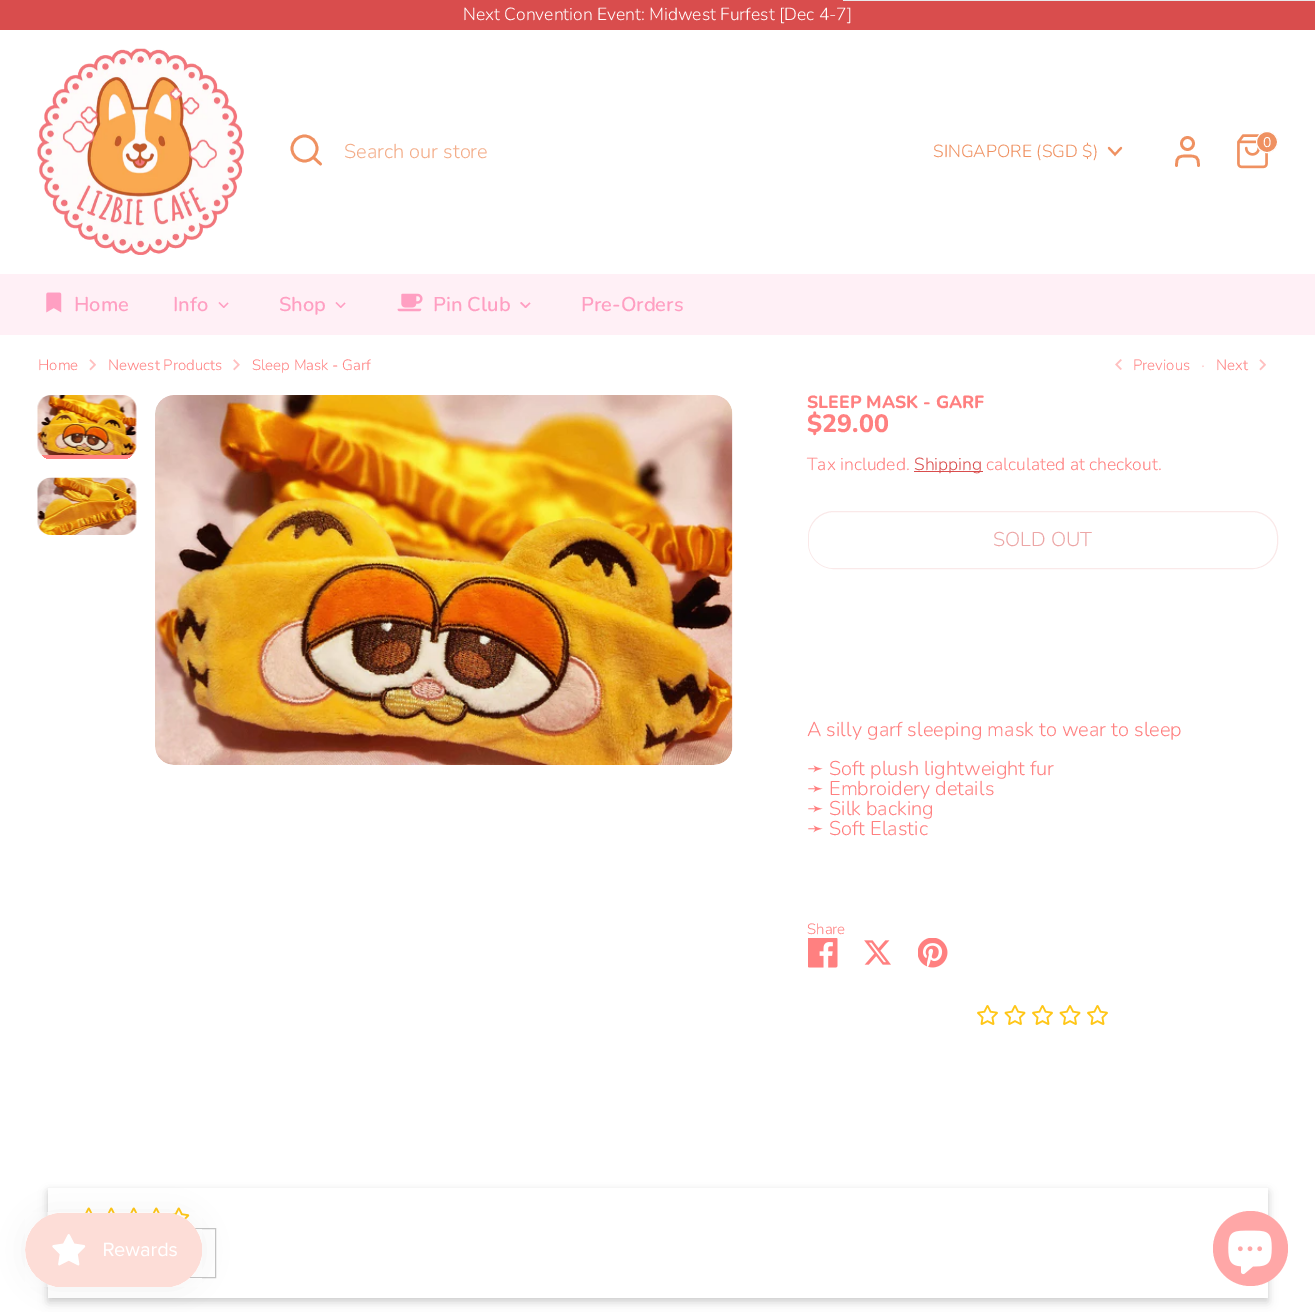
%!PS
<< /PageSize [1315 1312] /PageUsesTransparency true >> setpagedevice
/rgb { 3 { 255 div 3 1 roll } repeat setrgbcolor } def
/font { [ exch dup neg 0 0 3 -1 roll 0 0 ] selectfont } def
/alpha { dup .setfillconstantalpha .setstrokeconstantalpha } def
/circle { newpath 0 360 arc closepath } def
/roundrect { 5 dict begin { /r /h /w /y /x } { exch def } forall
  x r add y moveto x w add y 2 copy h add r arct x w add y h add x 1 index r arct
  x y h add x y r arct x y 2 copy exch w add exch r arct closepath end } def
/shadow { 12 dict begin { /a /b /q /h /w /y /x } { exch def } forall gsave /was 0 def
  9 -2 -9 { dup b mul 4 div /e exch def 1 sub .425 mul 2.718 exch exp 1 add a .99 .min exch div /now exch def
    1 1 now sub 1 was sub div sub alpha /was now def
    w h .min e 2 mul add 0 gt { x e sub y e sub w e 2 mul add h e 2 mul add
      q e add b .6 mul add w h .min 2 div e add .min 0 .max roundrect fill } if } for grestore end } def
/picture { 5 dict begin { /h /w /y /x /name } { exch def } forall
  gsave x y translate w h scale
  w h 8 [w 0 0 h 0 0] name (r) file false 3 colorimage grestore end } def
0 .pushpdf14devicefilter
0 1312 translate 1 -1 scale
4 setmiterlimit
255 255 255 rgb
0 0 1315 1312 rectfill
217 77 77 rgb
0 0 1315 30 rectfill
232 233 235 rgb
843 0 472 1 rectfill
(img/1.rgb) 37 48 207 207 picture
239 145 97 rgb
2.7 setlinewidth
304.5 148.5 12.5 circle stroke
1 setlinecap
1 setlinejoin
320.5 164 moveto 313.5 157.5 lineto stroke
2.1 setlinewidth
0 setlinejoin
1109 148 moveto 1115 154.5 lineto 1121 148 lineto stroke
2.7 setlinewidth
1 setlinejoin
1198.5 165.5 moveto 1198.5 156 1196 156 1187.5 156 curveto 1179 156 1176.5 156 1176.5 165.5 curveto stroke
0 setlinecap
0 setlinejoin
1187.5 143.5 6 circle stroke
(img/2.rgb) 1237 134 31 35 picture
1267 142 10.5 circle gsave fill grestore
255 255 255 rgb
1 setlinewidth
stroke
255 240 246 rgb
0 274 1315 61 rectfill
(img/3.rgb) 46 292 16 21 picture
255 159 194 rgb
227.5 302.5 moveto 228.5 303.5 lineto 224 308 lineto 223 307 lineto closepath fill
219.5 302 moveto 224.5 307 lineto 223.5 308 lineto 218.5 303 lineto closepath fill
344.5 302.5 moveto 345.5 303.5 lineto 341 308 lineto 340 307 lineto closepath fill
336.5 302 moveto 341.5 307 lineto 340.5 308 lineto 335.5 303 lineto closepath fill
(img/4.rgb) 397 293 26 19 picture
529.5 302.5 moveto 530.5 303.5 lineto 526 308 lineto 524.5 307 lineto closepath fill
521.5 302 moveto 526.5 307 lineto 525.5 308 lineto 520 303 lineto closepath fill
(img/5.rgb) 89 359 7 12 picture
(img/6.rgb) 233 359 7 12 picture
(img/7.rgb) 1115 359 7 11 picture
(img/5.rgb) 1259 359 7 12 picture
(img/8.rgb) 37 395 100 64 picture
gsave
38 395 98 64 14 roundrect clip newpath
255 128 128 rgb
38 455 98 4 rectfill
grestore
(img/9.rgb) 37 477 100 58 picture
(img/10.rgb) 155 395 578 370 picture
217 77 77 rgb
914 471 69 1 rectfill
250 233 233 rgb
808.5 511.5 469 57 25.5 roundrect stroke
255 255 255 rgb
809 513 467 55 25 roundrect fill
(img/11.rgb) 808 938 30 30 picture
(img/12.rgb) 864 940 27 25 picture
(img/13.rgb) 918 938 30 30 picture
(img/14.rgb) 977 1005 21 20 picture
(img/15.rgb) 1004 1005 22 20 picture
(img/14.rgb) 1032 1005 21 20 picture
(img/15.rgb) 1059 1005 22 20 picture
(img/14.rgb) 1087 1005 21 20 picture
gsave
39 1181 moveto 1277 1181 lineto 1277 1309 lineto 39 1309 lineto closepath 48 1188 moveto 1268 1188 lineto 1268 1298 lineto 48 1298 lineto closepath eoclip newpath
0 0 0 rgb
48 1190 1220 110 0 2.5 0.08 shadow
grestore
gsave
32 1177 moveto 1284 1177 lineto 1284 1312 lineto 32 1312 lineto closepath 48 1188 moveto 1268 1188 lineto 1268 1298 lineto 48 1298 lineto closepath eoclip newpath
0 0 0 rgb
48 1193 1220 110 0 5 0.12 shadow
grestore
(img/16.rgb) 85 1207 8 6 picture
(img/17.rgb) 107 1207 8 6 picture
(img/16.rgb) 130 1207 8 6 picture
(img/17.rgb) 152 1207 8 6 picture
(img/18.rgb) 171 1207 19 12 picture
197 197 197 rgb
68.5 1228.5 147 49 rectstroke
0 0 0 rgb
25 1213 178 75 37.5 15.5 0.05 shadow
(img/19.rgb) 25 1212 177 75 picture
255 167 167 rgb
1250.5 1248.5 37.5 circle fill
(img/20.rgb) 1228 1230 44 45 picture
/Nunito-Light 17.5 font
255 255 255 rgb
463 20 moveto (Next Convention Event: Midwest Furfest [Dec 4-7]) show
/Nunito-Light 20 font
243 173 137 rgb
344 158 moveto (Search our store) show
/Nunito-Light 17.5 font
239 145 97 rgb
933 157 moveto (SINGAPORE \(SGD $\)) show
/Nunito-Regular 14 font
255 255 255 rgb
1263 147 moveto (0) show
/Nunito-SemiBold 20 font
255 159 194 rgb
[
  [(Home) 74 311]
  [(Info) 173 311]
  [(Shop) 279 311]
  [(Pin Club) 433 311]
  [(Pre-Orders) 581 311]
] { aload pop moveto show } forall
/Nunito-Light 15 font
255 128 128 rgb
[
  [(Home) 38 370]
  [(Newest Products) 108 370]
  [(Sleep Mask - Garf) 252 370]
  [(Previous) 1133 370]
] { aload pop moveto show } forall
/Nunito-Light 18 font
255 192 192 rgb
1201 371 moveto (·) show
/Nunito-Light 15 font
255 128 128 rgb
1216 370 moveto (Next) show
/Nunito-ExtraBold 17.6 font
807 408 moveto (SLEEP MASK - GARF) show
/Nunito-ExtraBold 25 font
807 432 moveto ($29.00) show
/Nunito-Light 17.5 font
807 470 moveto (Tax included.) show
217 77 77 rgb
914 470 moveto (Shipping) show
255 128 128 rgb
986 470 moveto (calculated at checkout.) show
/Nunito-Light 20 font
236 166 166 rgb
993 546 moveto (SOLD OUT) show
255 128 128 rgb
807 736 moveto (A silly garf sleeping mask to wear to sleep) show
/DejaVuSans-Regular 20 font
807 775 moveto (➛) show
/Nunito-Light 20 font
829 775 moveto (Soft plush lightweight fur) show
/DejaVuSans-Regular 20 font
807 795 moveto (➛) show
/Nunito-Light 20 font
829 795 moveto (Embroidery details) show
/DejaVuSans-Regular 20 font
807 815 moveto (➛) show
/Nunito-Light 20 font
829 815 moveto (Silk backing) show
/DejaVuSans-Regular 20 font
807 835 moveto (➛) show
/Nunito-Light 20 font
829 835 moveto (Soft Elastic) show
/Nunito-Light 15 font
807 934 moveto (Share) show
.poppdf14devicefilter showpage
